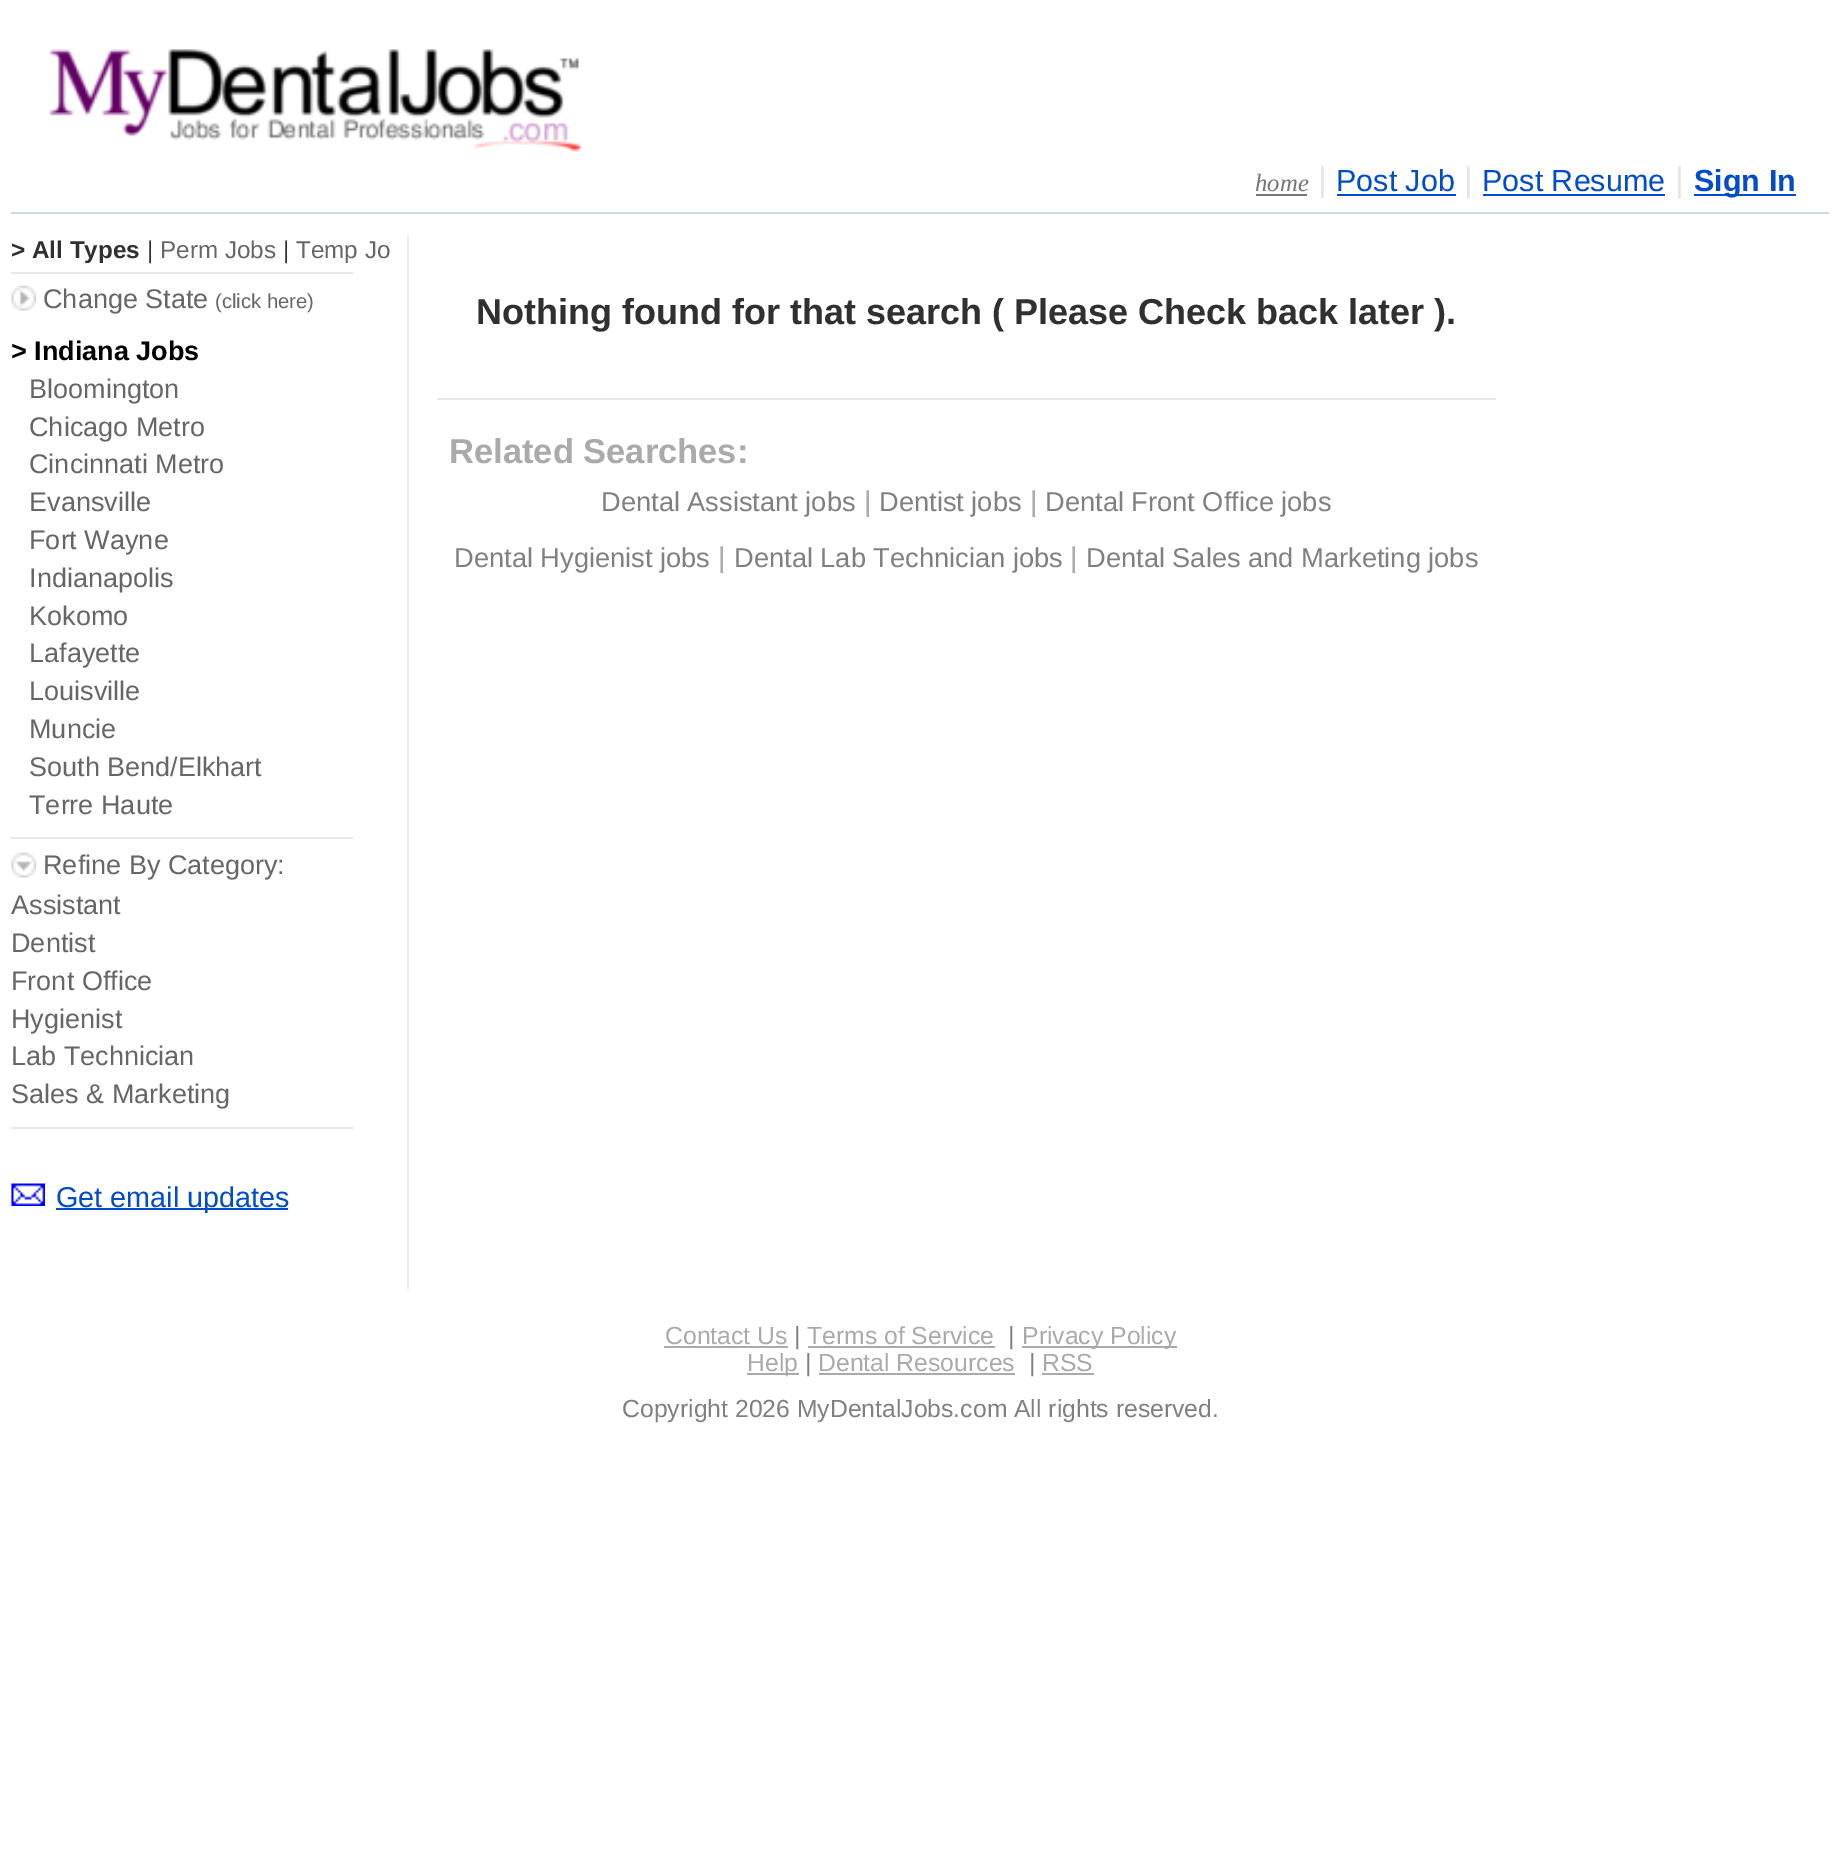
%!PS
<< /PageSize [1840 1859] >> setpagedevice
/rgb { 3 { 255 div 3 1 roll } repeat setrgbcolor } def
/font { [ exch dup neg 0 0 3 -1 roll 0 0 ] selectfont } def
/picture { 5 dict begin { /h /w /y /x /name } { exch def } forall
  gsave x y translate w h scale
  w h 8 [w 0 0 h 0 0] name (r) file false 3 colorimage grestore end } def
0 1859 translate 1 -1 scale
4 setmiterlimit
255 255 255 rgb
0 0 1840 1859 rectfill
(img/1.rgb) 49 49 533 103 picture
[
  [1256 194 51 2 117 117 117]
  [1337 194 119 2 0 76 202]
  [1483 194 182 2 0 76 202]
  [1694 194 102 2 0 76 202]
  [11 212 1818 2 204 218 238]
  [407 236 2 1053 235 235 235]
  [11 272 342 2 232 232 232]
] { aload pop rgb rectfill } forall
(img/2.rgb) 11 285 25 26 picture
11 837 342 2 rectfill
(img/3.rgb) 11 852 25 26 picture
11 1127 342 2 rectfill
(img/4.rgb) 11 1183 34 23 picture
[
  [56 1208 232 2 0 76 202]
  [437 398 1059 2 232 232 232]
  [664 1346 124 2 170 170 170]
  [808 1346 187 2 170 170 170]
  [1022 1346 155 2 170 170 170]
  [747 1373 52 2 170 170 170]
  [819 1373 196 2 170 170 170]
  [1042 1373 52 2 170 170 170]
] { aload pop rgb rectfill } forall
/LiberationSerif-Italic 24.75 font
117 117 117 rgb
1255 191 moveto (home) show
/LiberationSans-Regular 34 font
229 229 229 rgb
1318 191 moveto (|) show
/LiberationSans-Regular 30.5 font
0 76 202 rgb
1336 191 moveto (Post Job) show
/LiberationSans-Regular 34 font
229 229 229 rgb
1464 191 moveto (|) show
/LiberationSans-Regular 30.5 font
0 76 202 rgb
1482 191 moveto (Post Resume) show
/LiberationSans-Regular 34 font
229 229 229 rgb
1675 191 moveto (|) show
/LiberationSans-Bold 30.5 font
0 76 202 rgb
1694 191 moveto (Sign In) show
/LiberationSans-Bold 24.25 font
48 48 48 rgb
11 258 moveto (> All Types) show
/LiberationSans-Regular 24.25 font
147 258 moveto (|) show
102 102 102 rgb
160 258 moveto (Perm Jobs) show
48 48 48 rgb
283 258 moveto (|) show
102 102 102 rgb
296 258 moveto (Temp Jo) show
/LiberationSans-Regular 27 font
43 308 moveto (Change State) show
/LiberationSans-Regular 20.25 font
215 308 moveto (\(click here\)) show
/LiberationSans-Bold 27 font
0 0 0 rgb
11 360 moveto (> Indiana Jobs) show
/LiberationSans-Regular 27 font
102 102 102 rgb
[
  [(Bloomington) 29 398]
  [(Chicago Metro) 29 436]
  [(Cincinnati Metro) 29 473]
  [(Evansville) 29 511]
  [(Fort Wayne) 29 549]
  [(Indianapolis) 29 587]
  [(Kokomo) 29 625]
  [(Lafayette) 29 662]
  [(Louisville) 29 700]
  [(Muncie) 29 738]
  [(South Bend/Elkhart) 29 776]
  [(Terre Haute) 29 814]
  [(Refine By Category:) 43 874]
  [(Assistant) 11 914]
  [(Dentist) 11 952]
  [(Front Office) 11 990]
  [(Hygienist) 11 1028]
  [(Lab Technician) 11 1065]
  [(Sales & Marketing) 11 1103]
] { aload pop moveto show } forall
/LiberationSans-Regular 28.75 font
0 76 202 rgb
56 1207 moveto (Get email updates) show
/LiberationSans-Bold 36 font
48 48 48 rgb
476 324 moveto (Nothing found for that search \( Please Check back later \).) show
/LiberationSans-Bold 34.5 font
170 170 170 rgb
449 463 moveto (Related Searches:) show
/LiberationSans-Regular 27.25 font
128 128 128 rgb
601 511 moveto (Dental Assistant jobs) show
/LiberationSans-Regular 28.75 font
170 170 170 rgb
864 511 moveto (|) show
/LiberationSans-Regular 27.25 font
128 128 128 rgb
879 511 moveto (Dentist jobs) show
/LiberationSans-Regular 28.75 font
170 170 170 rgb
1030 511 moveto (|) show
/LiberationSans-Regular 27.25 font
128 128 128 rgb
1045 511 moveto (Dental Front Office jobs) show
454 567 moveto (Dental Hygienist jobs) show
/LiberationSans-Regular 28.75 font
170 170 170 rgb
718 567 moveto (|) show
/LiberationSans-Regular 27.25 font
128 128 128 rgb
734 567 moveto (Dental Lab Technician jobs) show
/LiberationSans-Regular 28.75 font
170 170 170 rgb
1070 567 moveto (|) show
/LiberationSans-Regular 27.25 font
128 128 128 rgb
1086 567 moveto (Dental Sales and Marketing jobs) show
/LiberationSans-Regular 24.75 font
170 170 170 rgb
665 1344 moveto (Contact Us) show
128 128 128 rgb
794 1344 moveto (|) show
170 170 170 rgb
807 1344 moveto (Terms of Service) show
128 128 128 rgb
1008 1344 moveto (|) show
170 170 170 rgb
1022 1344 moveto (Privacy Policy) show
747 1371 moveto (Help) show
128 128 128 rgb
805 1371 moveto (|) show
170 170 170 rgb
818 1371 moveto (Dental Resources) show
128 128 128 rgb
1029 1371 moveto (|) show
170 170 170 rgb
1042 1371 moveto (RSS) show
128 128 128 rgb
622 1417 moveto (Copyright 2026 MyDentalJobs.com All rights reserved.) show
showpage
